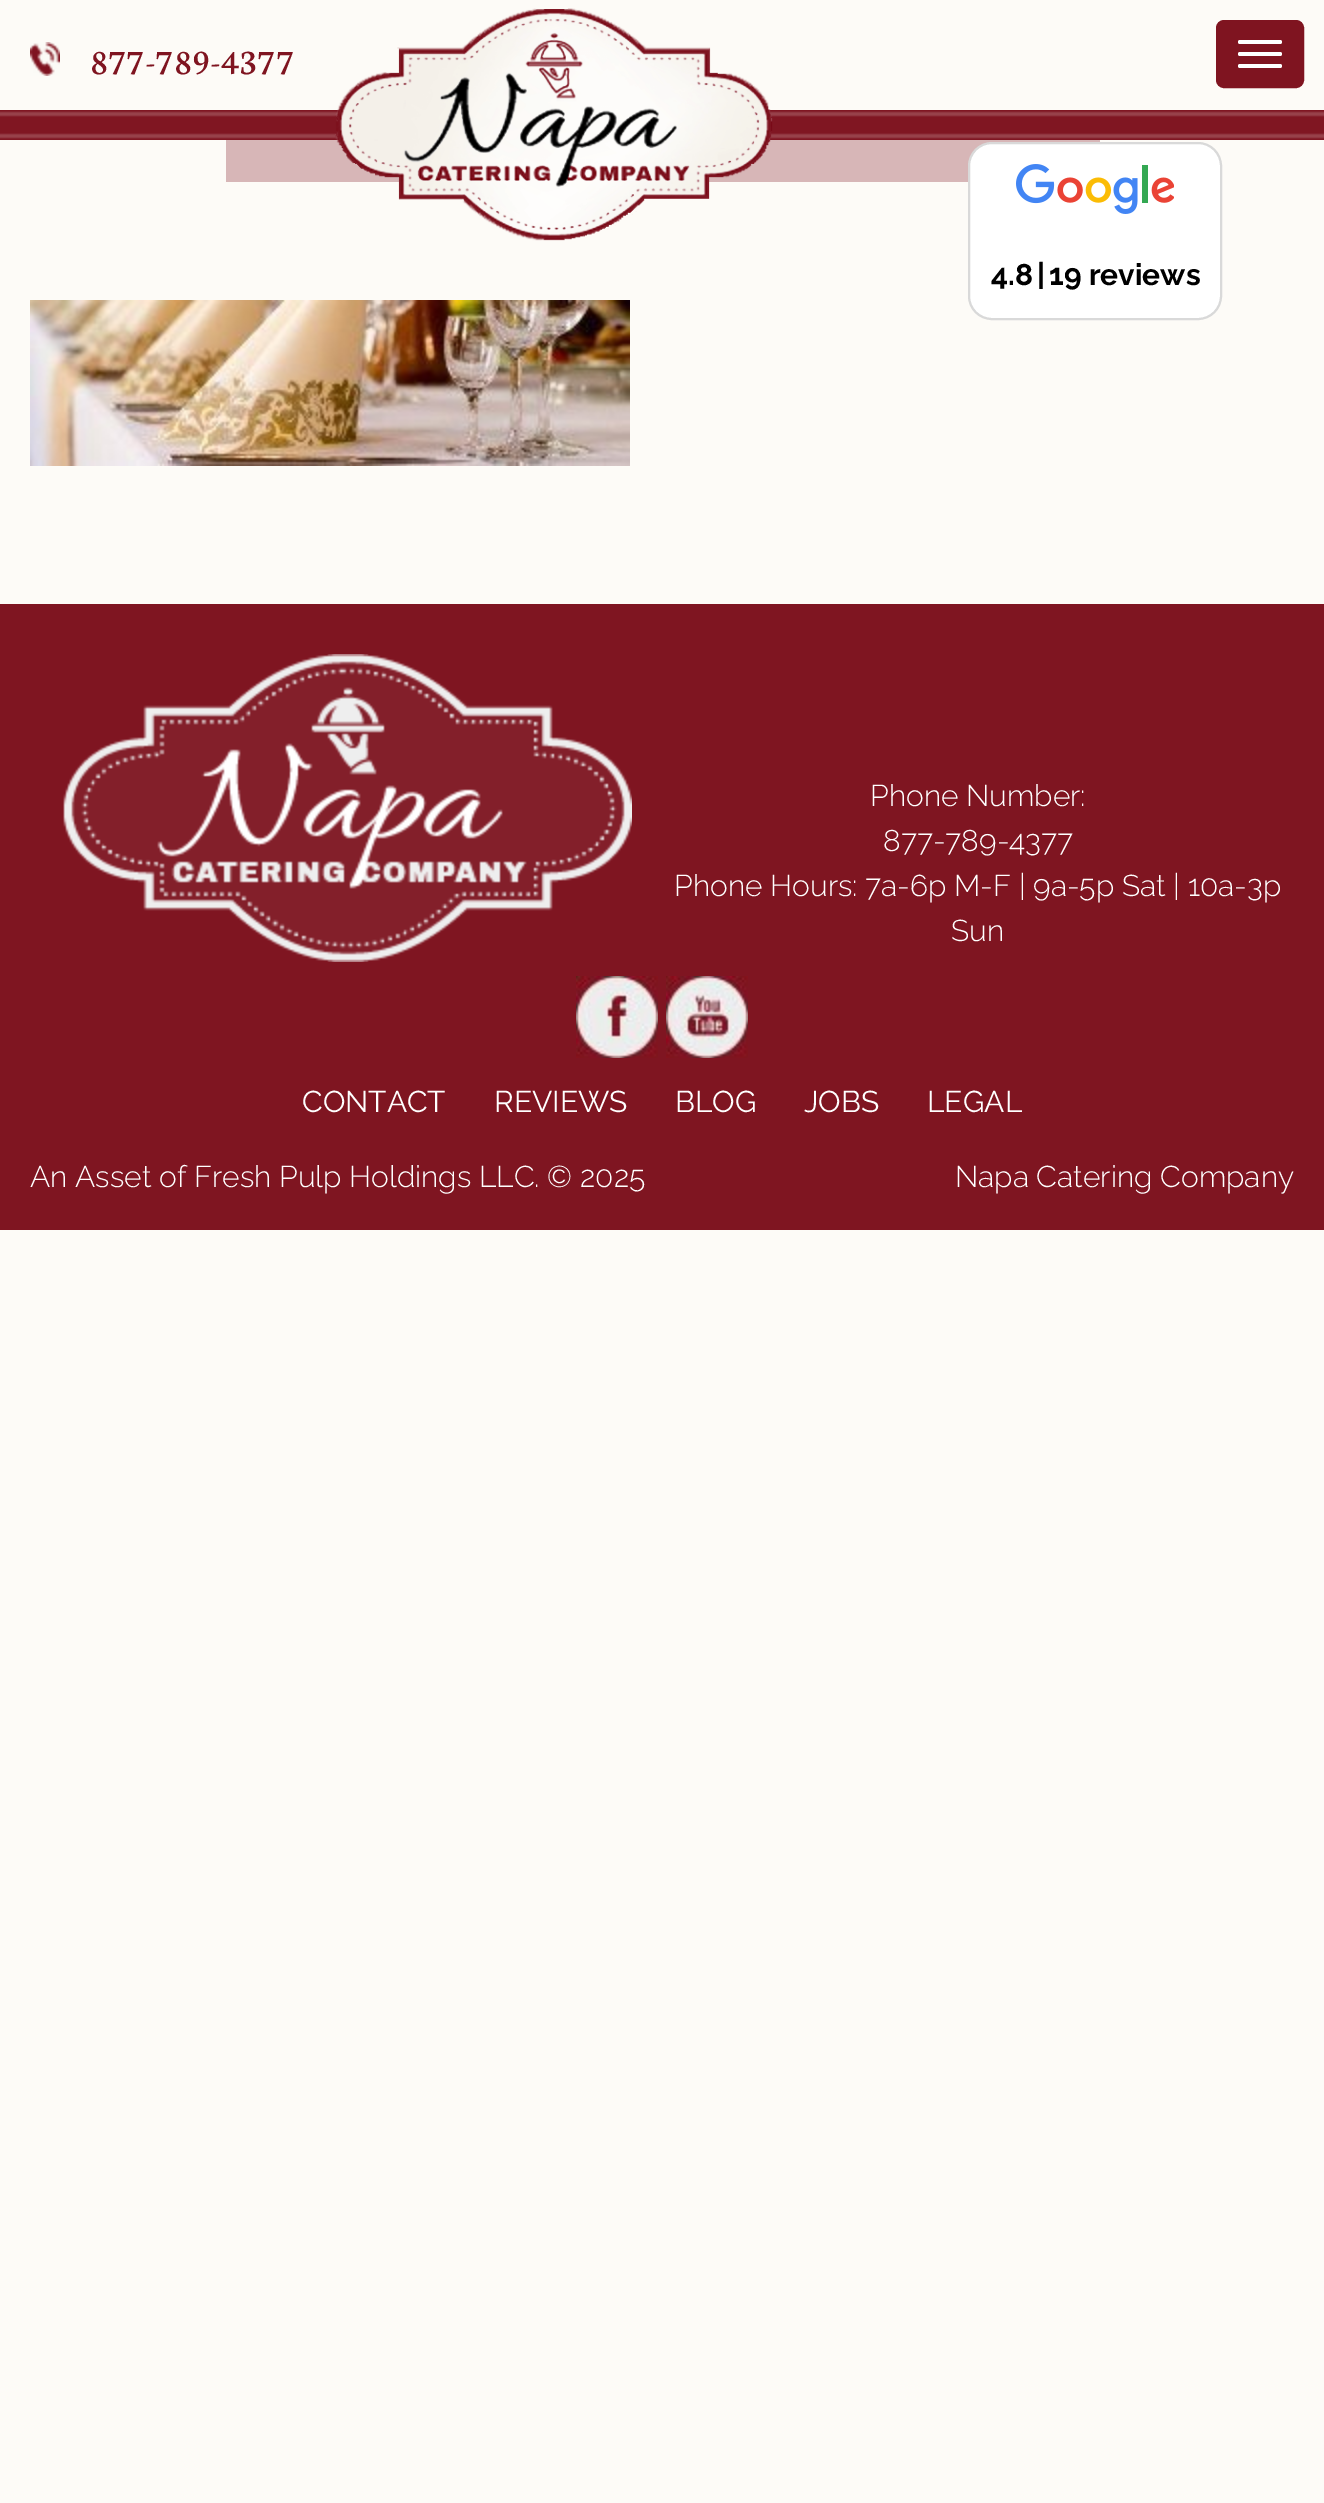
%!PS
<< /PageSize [1324 2503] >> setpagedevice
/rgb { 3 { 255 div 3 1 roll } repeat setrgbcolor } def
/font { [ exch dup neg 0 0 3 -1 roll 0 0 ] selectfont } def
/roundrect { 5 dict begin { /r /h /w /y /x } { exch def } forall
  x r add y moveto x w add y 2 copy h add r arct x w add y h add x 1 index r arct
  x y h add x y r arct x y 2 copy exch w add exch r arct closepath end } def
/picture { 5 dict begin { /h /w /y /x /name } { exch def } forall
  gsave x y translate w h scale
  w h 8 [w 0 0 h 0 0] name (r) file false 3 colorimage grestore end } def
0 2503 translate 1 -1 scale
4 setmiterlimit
253 251 247 rgb
0 0 1324 2503 rectfill
(img/1.rgb) 0 110 1324 30 picture
(img/2.rgb) 30 42 30 34 picture
215 182 183 rgb
226 140 874 42 rectfill
(img/3.rgb) 335 8 438 233 picture
127 20 32 rgb
1217 21 86 66 7 roundrect gsave fill grestore
2 setlinewidth
stroke
255 255 255 rgb
1238 40 44 4 2 roundrect fill
1238 52 44 4 2 roundrect fill
1238 64 44 4 2 roundrect fill
969 143 252 176 23 roundrect gsave fill grestore
217 217 217 rgb
stroke
(img/4.rgb) 1016 164 158 50 picture
(img/5.rgb) 30 300 600 166 picture
127 21 33 rgb
0 604 1324 626 rectfill
(img/6.rgb) 63 654 569 308 picture
(img/7.rgb) 576 976 82 82 picture
(img/8.rgb) 666 976 82 82 picture
/Neuton-Regular 38 font
127 20 32 rgb
90 74 moveto (877-789-4377) show
/Raleway-Bold 30 font
0 0 0 rgb
[
  [(4.8) 991 285]
  [(|) 1037 285]
  [(19 reviews) 1049 285]
] { aload pop moveto show } forall
/Raleway-Light 30 font
255 255 255 rgb
[
  [(Phone Number:) 870 806]
  [(877-789-4377) 883 851]
  [(Phone Hours: 7a-6p M-F | 9a-5p Sat | 10a-3p) 674 896]
  [(Sun) 951 941]
] { aload pop moveto show } forall
/Raleway-Regular 30 font
[
  [(CONTACT) 302 1112]
  [(REVIEWS) 494 1112]
  [(BLOG) 675 1112]
  [(JOBS) 804 1112]
  [(LEGAL) 927 1112]
] { aload pop moveto show } forall
/Raleway-Light 30 font
30 1187 moveto (An Asset of Fresh Pulp Holdings LLC. © 2025) show
955 1187 moveto (Napa Catering Company) show
showpage
